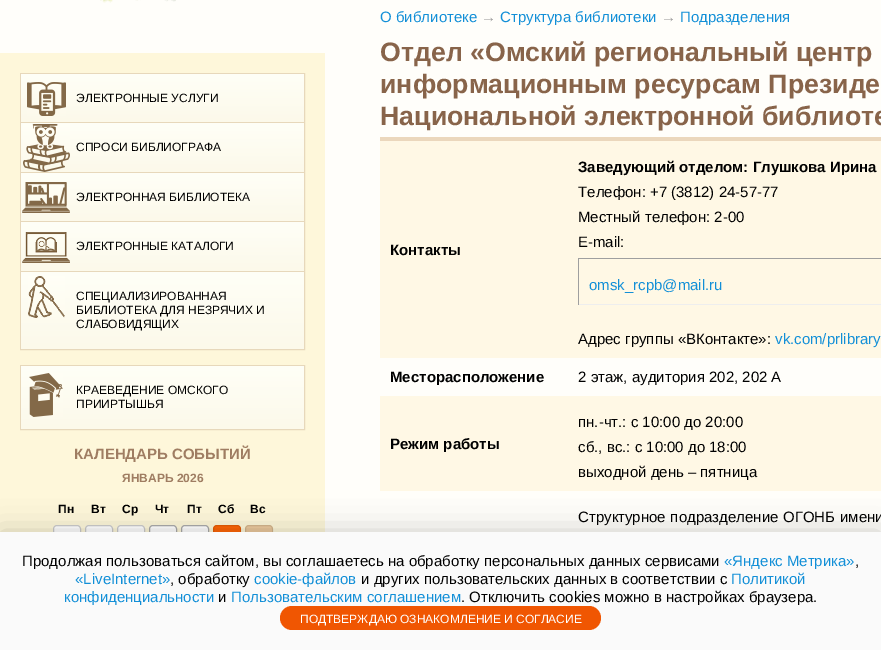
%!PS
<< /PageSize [881 650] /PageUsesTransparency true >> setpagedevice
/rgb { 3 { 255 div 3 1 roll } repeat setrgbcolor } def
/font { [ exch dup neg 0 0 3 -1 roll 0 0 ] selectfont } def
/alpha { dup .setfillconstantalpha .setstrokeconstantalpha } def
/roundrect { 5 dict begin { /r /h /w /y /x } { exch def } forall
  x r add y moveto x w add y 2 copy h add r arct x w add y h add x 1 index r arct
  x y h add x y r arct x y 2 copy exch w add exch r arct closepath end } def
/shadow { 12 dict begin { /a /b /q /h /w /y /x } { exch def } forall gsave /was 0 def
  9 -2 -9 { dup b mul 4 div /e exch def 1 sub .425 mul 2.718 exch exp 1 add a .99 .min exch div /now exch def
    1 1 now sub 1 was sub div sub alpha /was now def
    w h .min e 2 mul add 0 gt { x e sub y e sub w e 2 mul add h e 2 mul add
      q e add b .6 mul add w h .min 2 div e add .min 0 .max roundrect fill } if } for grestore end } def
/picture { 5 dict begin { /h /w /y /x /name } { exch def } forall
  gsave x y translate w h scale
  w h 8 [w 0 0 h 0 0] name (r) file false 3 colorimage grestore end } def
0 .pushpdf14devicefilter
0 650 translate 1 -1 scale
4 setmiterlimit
255 254 250 rgb
0 0 881 650 rectfill
(img/1.rgb) 100 0 76 3 picture
254 247 218 rgb
0 53 325 479 rectfill
231 216 187 rgb
20.5 73.5 284 276 rectstroke
gsave 21 74 moveto 304 74 lineto 304 122 lineto 21 122 lineto closepath clip newpath
<< /ShadingType 2 /ColorSpace /DeviceRGB /Coords [163 74 163 122] /Extend [true true] /Function << /FunctionType 2 /Domain [0 1] /C0 [1 1 0.969] /C1 [0.988 0.976 0.918] /N 1 >> >> shfill grestore
21 122 283 1 rectfill
(img/2.rgb) 27 82 39 34 picture
gsave 21 123 moveto 304 123 lineto 304 172 lineto 21 172 lineto closepath clip newpath
<< /ShadingType 2 /ColorSpace /DeviceRGB /Coords [163 123 163 172] /Extend [true true] /Function << /FunctionType 2 /Domain [0 1] /C0 [1 1 0.969] /C1 [0.988 0.976 0.918] /N 1 >> >> shfill grestore
21 172 283 1 rectfill
(img/3.rgb) 23 124 47 48 picture
gsave 21 173 moveto 304 173 lineto 304 221 lineto 21 221 lineto closepath clip newpath
<< /ShadingType 2 /ColorSpace /DeviceRGB /Coords [163 173 163 221] /Extend [true true] /Function << /FunctionType 2 /Domain [0 1] /C0 [1 1 0.969] /C1 [0.988 0.976 0.918] /N 1 >> >> shfill grestore
21 221 283 1 rectfill
(img/4.rgb) 22 182 48 31 picture
gsave 21 222 moveto 304 222 lineto 304 271 lineto 21 271 lineto closepath clip newpath
<< /ShadingType 2 /ColorSpace /DeviceRGB /Coords [163 222 163 271] /Extend [true true] /Function << /FunctionType 2 /Domain [0 1] /C0 [1 1 0.969] /C1 [0.988 0.976 0.918] /N 1 >> >> shfill grestore
21 271 283 1 rectfill
(img/5.rgb) 22 232 48 31 picture
gsave 21 272 moveto 304 272 lineto 304 349 lineto 21 349 lineto closepath clip newpath
<< /ShadingType 2 /ColorSpace /DeviceRGB /Coords [163 272 163 349] /Extend [true true] /Function << /FunctionType 2 /Domain [0 1] /C0 [1 1 0.969] /C1 [0.988 0.976 0.918] /N 1 >> >> shfill grestore
(img/6.rgb) 28 276 37 42 picture
20.5 365.5 284 64 rectstroke
gsave 21 366 moveto 304 366 lineto 304 429 lineto 21 429 lineto closepath clip newpath
<< /ShadingType 2 /ColorSpace /DeviceRGB /Coords [163 366 163 429] /Extend [true true] /Function << /FunctionType 2 /Domain [0 1] /C0 [1 1 0.969] /C1 [0.988 0.976 0.918] /N 1 >> >> shfill grestore
(img/7.rgb) 29 373 34 44 picture
255 255 255 rgb
53.5 525.5 27 19 3.5 roundrect gsave fill grestore
204 204 204 rgb
stroke
255 255 255 rgb
85.5 525.5 27 19 3.5 roundrect gsave fill grestore
204 204 204 rgb
stroke
255 255 255 rgb
117.5 525.5 27 19 3.5 roundrect gsave fill grestore
204 204 204 rgb
stroke
255 255 255 rgb
149.5 525.5 27 19 3.5 roundrect gsave fill grestore
170 170 170 rgb
stroke
255 255 255 rgb
181.5 525.5 27 19 3.5 roundrect gsave fill grestore
170 170 170 rgb
stroke
255 102 6 rgb
213 525 28 20 4 roundrect fill
0.1 alpha
0 0 0 rgb
213.5 525.5 27 19 3.5 roundrect stroke
1 alpha
235 201 156 rgb
245 525 28 20 4 roundrect fill
0.1 alpha
0 0 0 rgb
245.5 525.5 27 19 3.5 roundrect stroke
1 alpha
[
  [380 137 501 4 235 215 188]
  [380 141 501 217 255 248 229]
  [578 258 303 1 159 159 159]
  [578 304 303 1 238 238 238]
  [578 258 1 47 159 159 159]
  [380 396 501 95 255 248 229]
] { aload pop rgb rectfill } forall
0 0 0 rgb
0 532 881 118 0 15 0.2 shadow
250 250 250 rgb
0 532 881 118 rectfill
240 86 2 rgb
280 606 321 24 12 roundrect fill
/LiberationSans-Regular 12 font
0 0 0 rgb
[
  [(ЭЛЕКТРОННЫЕ УСЛУГИ) 76 102]
  [(СПРОСИ БИБЛИОГРАФА) 76 151]
  [(ЭЛЕКТРОННАЯ БИБЛИОТЕКА) 76 201]
  [(ЭЛЕКТРОННЫЕ КАТАЛОГИ) 76 250]
  [(СПЕЦИАЛИЗИРОВАННАЯ) 76 300]
  [(БИБЛИОТЕКА ДЛЯ НЕЗРЯЧИХ И) 76 314]
  [(СЛАБОВИДЯЩИХ) 76 328]
  [(КРАЕВЕДЕНИЕ ОМСКОГО) 76 394]
  [(ПРИИРТЫШЬЯ) 76 408]
] { aload pop moveto show } forall
/LiberationSans-Bold 15 font
159 125 98 rgb
74 459 moveto (КАЛЕНДАРЬ СОБЫТИЙ) show
/LiberationSans-Bold 12 font
122 482 moveto (ЯНВАРЬ 2026) show
0 0 0 rgb
[
  [(Пн) 58 513]
  [(Вт) 91 513]
  [(Ср) 122 513]
  [(Чт) 155 513]
  [(Пт) 187 513]
  [(Сб) 218 513]
  [(Вс) 250 513]
] { aload pop moveto show } forall
/LiberationSans-Regular 15 font
18 143 215 rgb
380 22 moveto (О библиотеке) show
153 153 153 rgb
481 22 moveto (→) show
18 143 215 rgb
500 22 moveto (Структура библиотеки) show
153 153 153 rgb
661 22 moveto (→) show
18 143 215 rgb
680 22 moveto (Подразделения) show
/LiberationSans-Bold 26.7 font
136 100 74 rgb
[
  [(Отдел «Омский региональный центр) 380 61]
  [(информационным ресурсам Президе) 380 93]
  [(Национальной электронной библиоте) 380 125]
] { aload pop moveto show } forall
/LiberationSans-Bold 15 font
0 0 0 rgb
390 255 moveto (Контакты) show
578 172 moveto (Заведующий отделом: Глушкова Ирина) show
/LiberationSans-Regular 15 font
[
  [(Телефон: +7 \(3812\) 24-57-77) 578 197]
  [(Местный телефон: 2-00) 578 222]
  [(E-mail:) 578 247]
] { aload pop moveto show } forall
18 143 215 rgb
589 290 moveto (omsk_rcpb@mail.ru) show
0 0 0 rgb
578 344 moveto (Адрес группы «ВКонтакте»:) show
18 143 215 rgb
775 344 moveto (vk.com/prlibrary) show
/LiberationSans-Bold 15 font
0 0 0 rgb
390 382 moveto (Месторасположение) show
/LiberationSans-Regular 15 font
578 382 moveto (2 этаж, аудитория 202, 202 А) show
/LiberationSans-Bold 15 font
390 449 moveto (Режим работы) show
/LiberationSans-Regular 15 font
[
  [(пн.-чт.: с 10:00 до 20:00) 578 427]
  [(сб., вс.: с 10:00 до 18:00) 578 452]
  [(выходной день – пятница) 578 477]
] { aload pop moveto show } forall
578 522 moveto 0.5 0 32 (Структурное подразделение ОГОНБ имени) widthshow
22 566 moveto (Продолжая пользоваться сайтом, вы соглашаетесь на обработку персональных данных сервисами) show
18 143 215 rgb
724 566 moveto («Яндекс Метрика») show
0 0 0 rgb
855 566 moveto (,) show
18 143 215 rgb
75 584 moveto («LiveInternet») show
0 0 0 rgb
170 584 moveto (, обработку) show
18 143 215 rgb
254 584 moveto (cookie-файлов) show
0 0 0 rgb
361 584 moveto (и других пользовательских данных в соответствии с) show
18 143 215 rgb
731 584 moveto (Политикой) show
64 602 moveto (конфиденциальности) show
0 0 0 rgb
218 602 moveto (и) show
18 143 215 rgb
231 602 moveto (Пользовательским соглашением) show
0 0 0 rgb
461 602 moveto (. Отключить cookies можно в настройках браузера.) show
/LiberationSans-Regular 12 font
255 255 255 rgb
300 623 moveto (ПОДТВЕРЖДАЮ ОЗНАКОМЛЕНИЕ И СОГЛАСИЕ) show
.poppdf14devicefilter showpage
